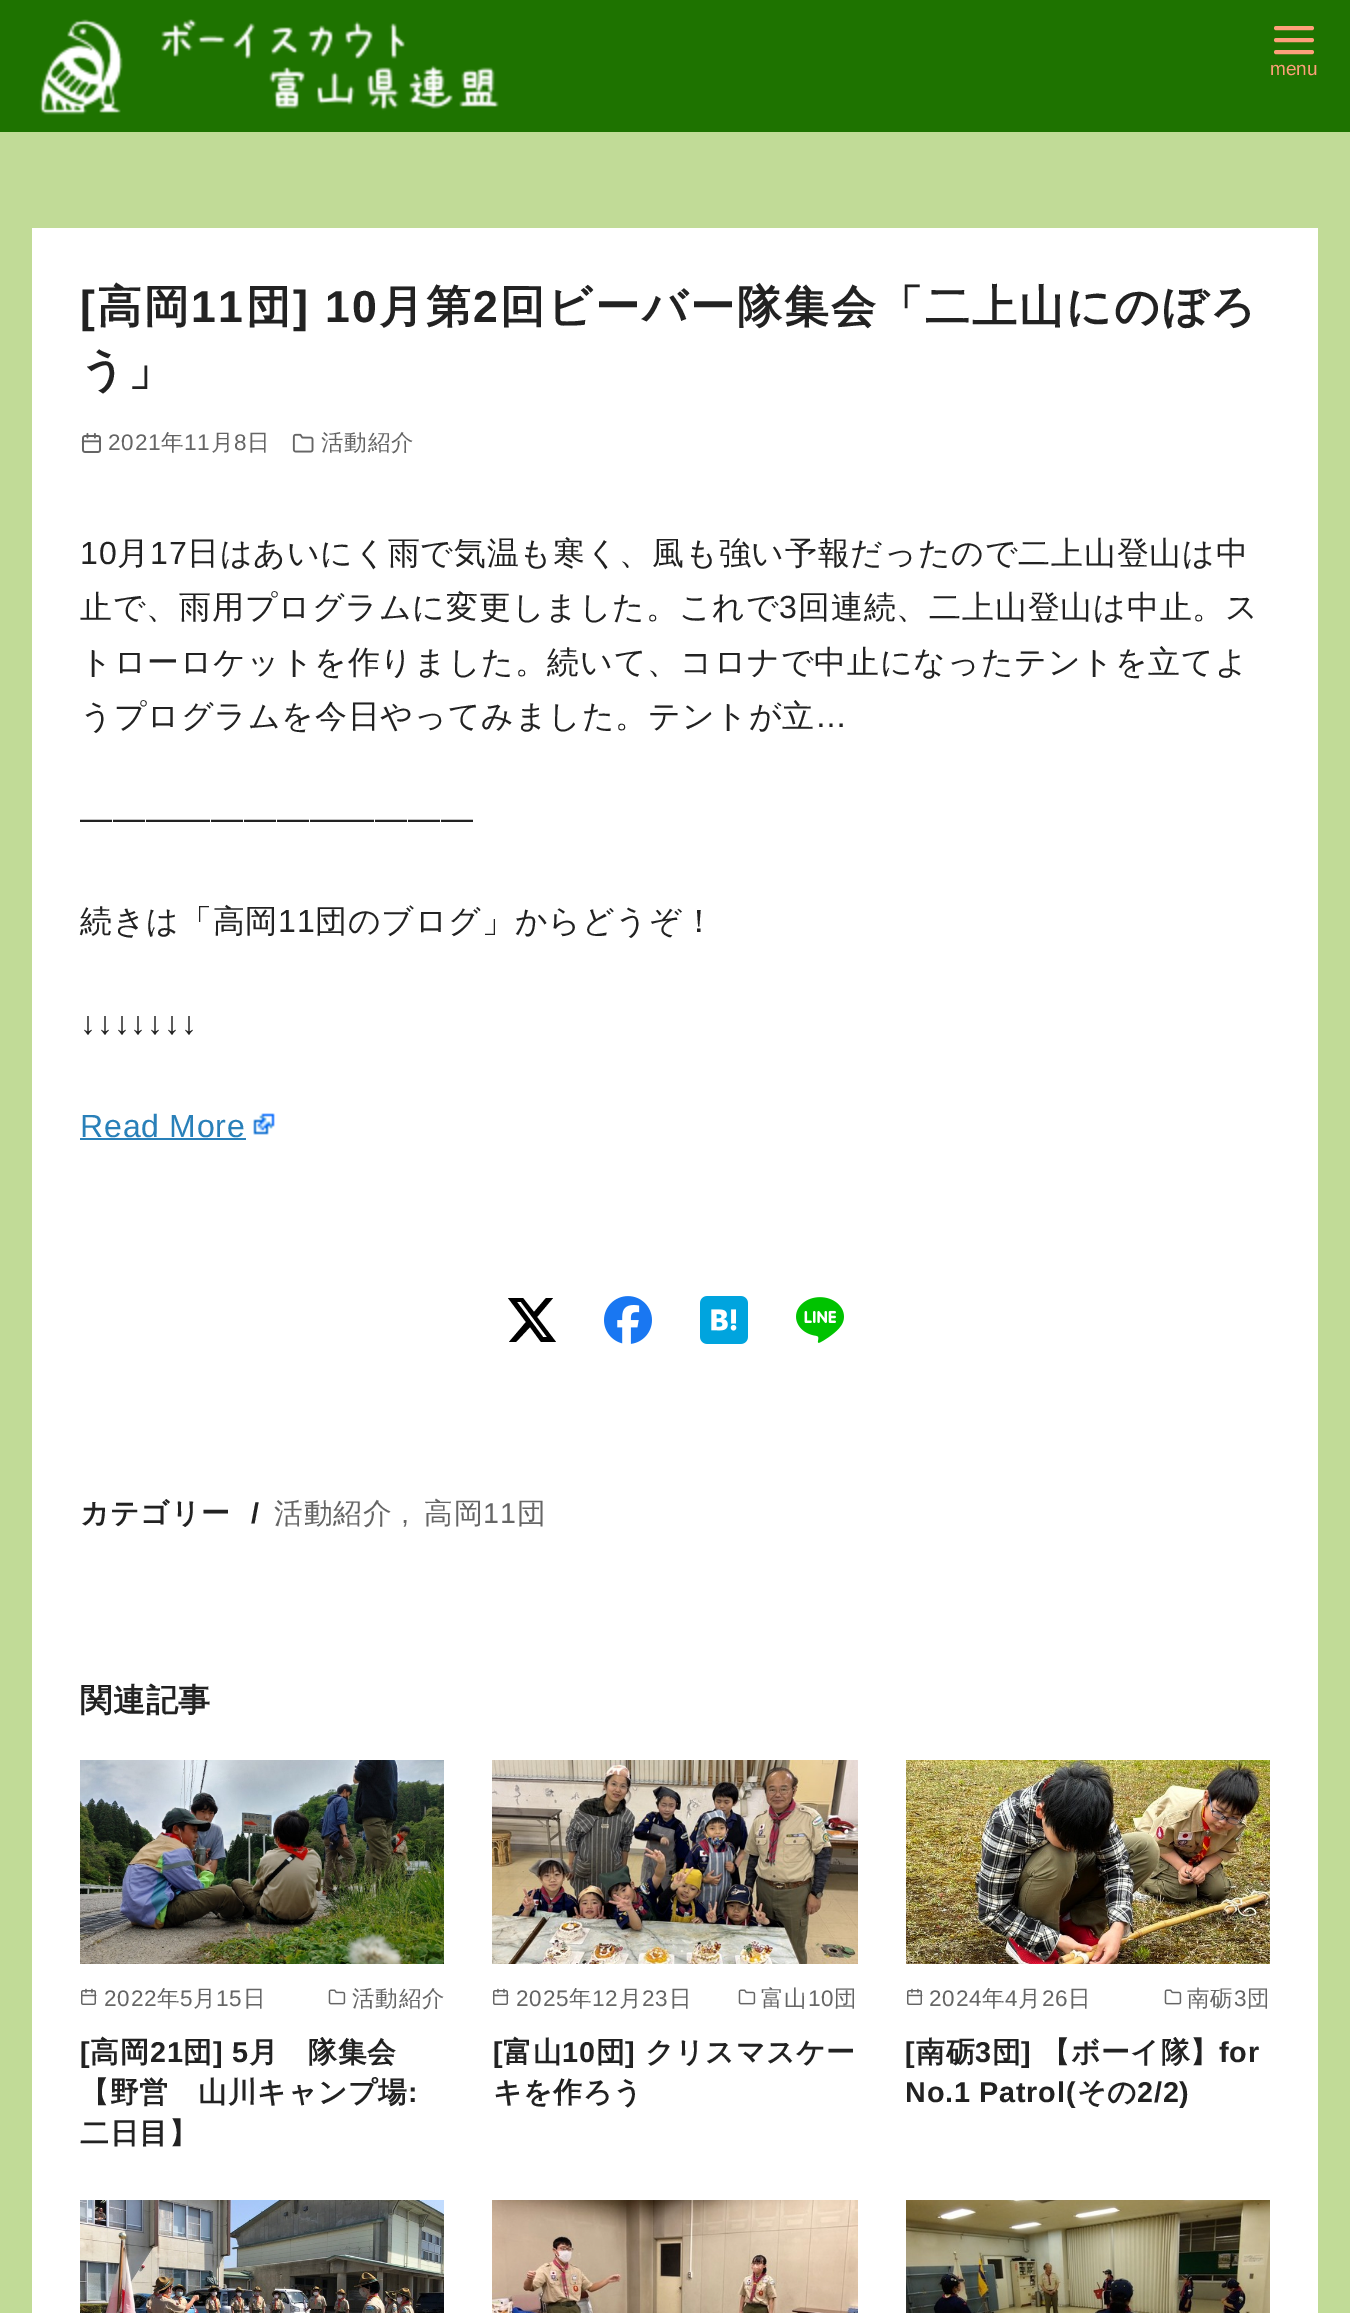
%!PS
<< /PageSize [1350 2313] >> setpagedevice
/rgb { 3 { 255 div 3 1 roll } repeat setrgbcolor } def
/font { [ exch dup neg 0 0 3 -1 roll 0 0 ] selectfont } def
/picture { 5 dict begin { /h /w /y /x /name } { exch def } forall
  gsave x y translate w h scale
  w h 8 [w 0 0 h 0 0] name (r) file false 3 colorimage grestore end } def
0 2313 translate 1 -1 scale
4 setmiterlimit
193 219 151 rgb
0 0 1350 2313 rectfill
30 115 0 rgb
0 0 1350 132 rectfill
(img/1.rgb) 39 19 460 96 picture
255 160 122 rgb
4 setlinewidth
1 setlinecap
1 setlinejoin
1276 40 moveto 1312 40 lineto 1276 28 moveto 1312 28 lineto 1276 52 moveto 1312 52 lineto stroke
255 255 255 rgb
32 228 1286 2085 rectfill
(img/2.rgb) 81 432 20 21 picture
(img/3.rgb) 292 433 22 20 picture
41 128 185 rgb
80 1138 166 2 rectfill
(img/4.rgb) 253 1113 22 22 picture
0 0 0 rgb
546 1298 moveto 553 1298 lineto 537 1317 lineto 556 1342 lineto 541 1342 lineto 530 1327 lineto 516 1342 lineto 509 1342 lineto 526 1322 lineto 508 1298 lineto 523 1298 lineto 534 1312 lineto closepath 543 1337 moveto 547 1337 lineto 521 1302 lineto 517 1302 lineto closepath fill
(img/5.rgb) 604 1296 48 48 picture
(img/6.rgb) 700 1296 48 48 picture
(img/7.rgb) 796 1297 48 46 picture
(img/8.rgb) 80 1760 364 204 picture
(img/9.rgb) 81 1988 16 17 picture
(img/10.rgb) 328 1989 18 16 picture
(img/11.rgb) 492 1760 366 204 picture
(img/9.rgb) 493 1988 16 17 picture
(img/10.rgb) 738 1989 18 16 picture
(img/12.rgb) 906 1760 364 204 picture
(img/9.rgb) 907 1988 16 17 picture
(img/10.rgb) 1164 1989 18 16 picture
(img/13.rgb) 80 2200 364 113 picture
(img/14.rgb) 492 2200 366 113 picture
(img/15.rgb) 906 2200 364 113 picture
/LiberationSans-Regular 19 font
255 160 122 rgb
1270 75 moveto (menu) show
/LiberationSans-Bold 44.75 font
34 34 34 rgb
80 322 moveto 2.25 0 ([) ashow
/WenQuanYiZenHei-Bold 44.75 font
97 322 moveto 2.25 0 (高岡) ashow
/LiberationSans-Bold 44.75 font
191 322 moveto 2.25 0 (11) ashow
/WenQuanYiZenHei-Bold 44.75 font
246 322 moveto 2.25 0 (団) ashow
/LiberationSans-Bold 44.75 font
293 322 moveto 2.25 0 (] 10) ashow
/WenQuanYiZenHei-Bold 44.75 font
379 322 moveto 2.25 0 (月第) ashow
/LiberationSans-Bold 44.75 font
473 322 moveto 2.25 0 (2) ashow
/WenQuanYiZenHei-Bold 44.75 font
500 322 moveto 2.25 0 (回ビーバー隊集会「二上山にのぼろ) ashow
80 385 moveto 2.25 0 (う」) ashow
/LiberationSans-Regular 22.5 font
101 101 101 rgb
108 450 moveto 0.8 0 (2021) ashow
/WenQuanYiZenHei-Medium 22.5 font
161 450 moveto 0.8 0 (年) ashow
/LiberationSans-Regular 22.5 font
184 450 moveto 0.8 0 (11) ashow
/WenQuanYiZenHei-Medium 22.5 font
211 450 moveto 0.8 0 (月) ashow
/LiberationSans-Regular 22.5 font
234 450 moveto 0.8 0 (8) ashow
/WenQuanYiZenHei-Medium 22.5 font
247 450 moveto 0.8 0 (日) ashow
321 450 moveto 0.8 0 (活動紹介) ashow
/LiberationSans-Regular 32 font
34 34 34 rgb
80 564 moveto 0.8 0 (10) ashow
/WenQuanYiZenHei-Medium 32 font
117 564 moveto 0.8 0 (月) ashow
/LiberationSans-Regular 32 font
150 564 moveto 0.8 0 (17) ashow
/WenQuanYiZenHei-Medium 32 font
187 564 moveto 0.8 0 (日はあいにく雨で気温も寒く、風も強い予報だったので二上山登山は中) ashow
80 618 moveto 0.8 0 (止で、雨用プログラムに変更しました。これで) ashow
/LiberationSans-Regular 32 font
779 618 moveto 0.8 0 (3) ashow
/WenQuanYiZenHei-Medium 32 font
798 618 moveto 0.8 0 (回連続、二上山登山は中止。ス) ashow
80 673 moveto 0.8 0 (トローロケットを作りました。続いて、コロナで中止になったテントを立てよ) ashow
80 727 moveto 0.8 0 (うプログラムを今日やってみました。テントが立) ashow
/LiberationSans-Regular 32 font
815 727 moveto 0.8 0 (…) ashow
80 829 moveto 0.8 0 (————————————) ashow
/WenQuanYiZenHei-Medium 32 font
80 932 moveto 0.8 0 (続きは「高岡) ashow
/LiberationSans-Regular 32 font
278 932 moveto 0.8 0 (11) ashow
/WenQuanYiZenHei-Medium 32 font
315 932 moveto 0.8 0 (団のブログ」からどうぞ！) ashow
/LiberationSans-Regular 32 font
80 1034 moveto 0.8 0 (↓↓↓↓↓↓↓) ashow
41 128 185 rgb
80 1137 moveto 0.8 0 (Read More) ashow
/WenQuanYiZenHei-Bold 28.75 font
34 34 34 rgb
80 1523 moveto 0.8 0 (カテゴリー) ashow
/LiberationSans-Bold 28.75 font
251 1523 moveto 0.8 0 (/) ashow
/WenQuanYiZenHei-Medium 28.75 font
101 101 101 rgb
274 1523 moveto 0.8 0 (活動紹介) ashow
/LiberationSans-Regular 28.75 font
401 1523 moveto 0.8 0 (,) ashow
/WenQuanYiZenHei-Medium 28.75 font
424 1523 moveto 0.8 0 (高岡) ashow
/LiberationSans-Regular 28.75 font
483 1523 moveto 0.8 0 (11) ashow
/WenQuanYiZenHei-Medium 28.75 font
517 1523 moveto 0.8 0 (団) ashow
/WenQuanYiZenHei-Bold 32 font
34 34 34 rgb
80 1711 moveto 0.8 0 (関連記事) ashow
/LiberationSans-Regular 22.5 font
101 101 101 rgb
104 2006 moveto 0.8 0 (2022) ashow
/WenQuanYiZenHei-Medium 22.5 font
157 2006 moveto 0.8 0 (年) ashow
/LiberationSans-Regular 22.5 font
180 2006 moveto 0.8 0 (5) ashow
/WenQuanYiZenHei-Medium 22.5 font
193 2006 moveto 0.8 0 (月) ashow
/LiberationSans-Regular 22.5 font
216 2006 moveto 0.8 0 (15) ashow
/WenQuanYiZenHei-Medium 22.5 font
243 2006 moveto 0.8 0 (日) ashow
352 2006 moveto 0.8 0 (活動紹介) ashow
/LiberationSans-Bold 28.75 font
34 34 34 rgb
80 2062 moveto 0.8 0 ([) ashow
/WenQuanYiZenHei-Bold 28.75 font
90 2062 moveto 0.8 0 (高岡) ashow
/LiberationSans-Bold 28.75 font
150 2062 moveto 0.8 0 (21) ashow
/WenQuanYiZenHei-Bold 28.75 font
183 2062 moveto 0.8 0 (団) ashow
/LiberationSans-Bold 28.75 font
213 2062 moveto 0.8 0 (] 5) ashow
/WenQuanYiZenHei-Bold 28.75 font
249 2062 moveto 0.8 0 (月　隊集会) ashow
80 2102 moveto 0.8 0 (【野営　山川キャンプ場) ashow
/LiberationSans-Bold 28.75 font
408 2102 moveto 0.8 0 (:) ashow
/WenQuanYiZenHei-Bold 28.75 font
80 2143 moveto 0.8 0 (二日目】) ashow
/LiberationSans-Regular 22.5 font
101 101 101 rgb
516 2006 moveto 0.8 0 (2025) ashow
/WenQuanYiZenHei-Medium 22.5 font
569 2006 moveto 0.8 0 (年) ashow
/LiberationSans-Regular 22.5 font
592 2006 moveto 0.8 0 (12) ashow
/WenQuanYiZenHei-Medium 22.5 font
619 2006 moveto 0.8 0 (月) ashow
/LiberationSans-Regular 22.5 font
642 2006 moveto 0.8 0 (23) ashow
/WenQuanYiZenHei-Medium 22.5 font
669 2006 moveto 0.8 0 (日) ashow
761 2006 moveto 0.8 0 (富山) ashow
/LiberationSans-Regular 22.5 font
808 2006 moveto 0.8 0 (10) ashow
/WenQuanYiZenHei-Medium 22.5 font
834 2006 moveto 0.8 0 (団) ashow
/LiberationSans-Bold 28.75 font
34 34 34 rgb
493 2062 moveto 0.8 0 ([) ashow
/WenQuanYiZenHei-Bold 28.75 font
503 2062 moveto 0.8 0 (富山) ashow
/LiberationSans-Bold 28.75 font
562 2062 moveto 0.8 0 (10) ashow
/WenQuanYiZenHei-Bold 28.75 font
596 2062 moveto 0.8 0 (団) ashow
/LiberationSans-Bold 28.75 font
625 2062 moveto 0.8 0 (]) ashow
/WenQuanYiZenHei-Bold 28.75 font
645 2062 moveto 0.8 0 (クリスマスケー) ashow
493 2102 moveto 0.8 0 (キを作ろう) ashow
/LiberationSans-Regular 22.5 font
101 101 101 rgb
929 2006 moveto 0.8 0 (2024) ashow
/WenQuanYiZenHei-Medium 22.5 font
982 2006 moveto 0.8 0 (年) ashow
/LiberationSans-Regular 22.5 font
1005 2006 moveto 0.8 0 (4) ashow
/WenQuanYiZenHei-Medium 22.5 font
1018 2006 moveto 0.8 0 (月) ashow
/LiberationSans-Regular 22.5 font
1042 2006 moveto 0.8 0 (26) ashow
/WenQuanYiZenHei-Medium 22.5 font
1068 2006 moveto 0.8 0 (日) ashow
1187 2006 moveto 0.8 0 (南砺) ashow
/LiberationSans-Regular 22.5 font
1234 2006 moveto 0.8 0 (3) ashow
/WenQuanYiZenHei-Medium 22.5 font
1247 2006 moveto 0.8 0 (団) ashow
/LiberationSans-Bold 28.75 font
34 34 34 rgb
905 2062 moveto 0.8 0 ([) ashow
/WenQuanYiZenHei-Bold 28.75 font
916 2062 moveto 0.8 0 (南砺) ashow
/LiberationSans-Bold 28.75 font
975 2062 moveto 0.8 0 (3) ashow
/WenQuanYiZenHei-Bold 28.75 font
992 2062 moveto 0.8 0 (団) ashow
/LiberationSans-Bold 28.75 font
1021 2062 moveto 0.8 0 (]) ashow
/WenQuanYiZenHei-Bold 28.75 font
1041 2062 moveto 0.8 0 (【ボーイ隊】) ashow
/LiberationSans-Bold 28.75 font
1219 2062 moveto 0.8 0 (for) ashow
905 2102 moveto 0.8 0 (No.1 Patrol\() ashow
/WenQuanYiZenHei-Bold 28.75 font
1077 2102 moveto 0.8 0 (その) ashow
/LiberationSans-Bold 28.75 font
1137 2102 moveto 0.8 0 (2/2\)) ashow
showpage
